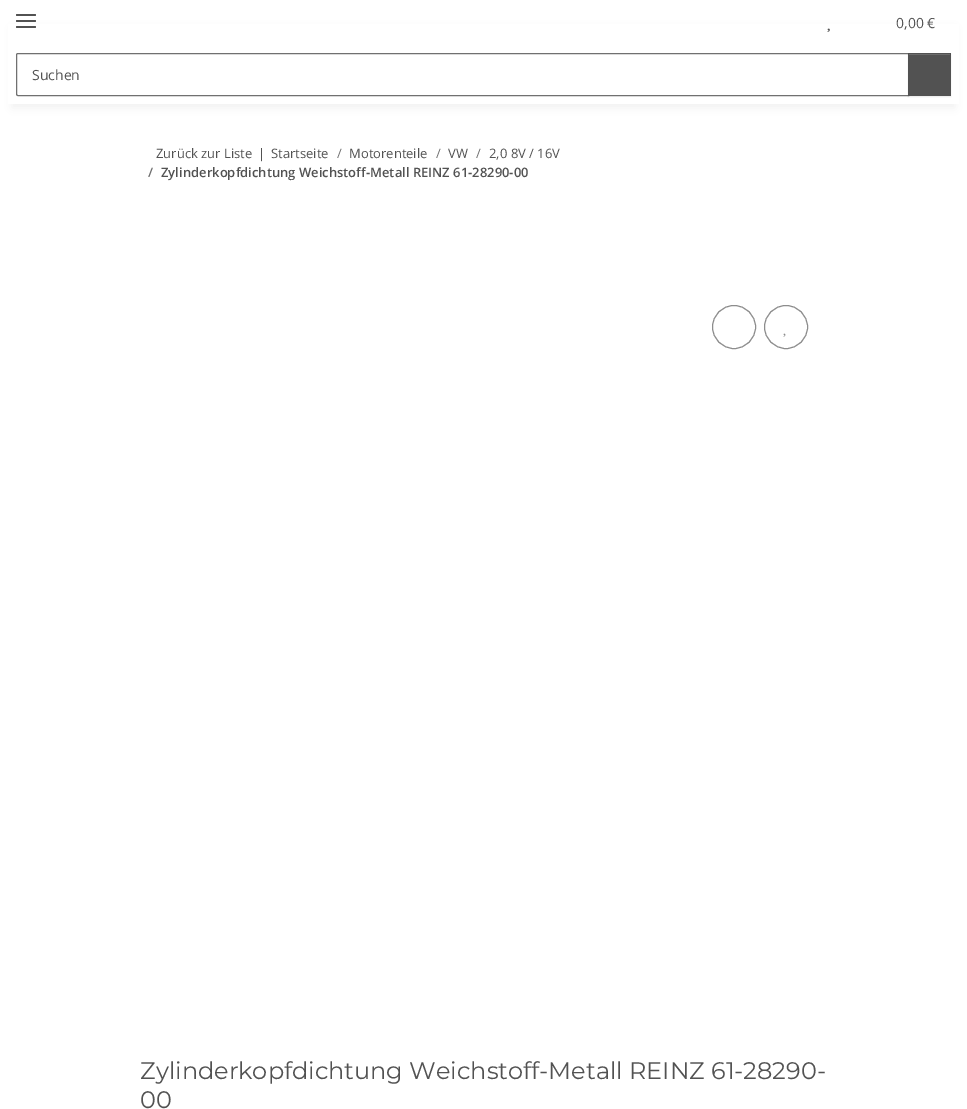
%!PS
<< /PageSize [967 1109] /PageUsesTransparency true >> setpagedevice
/rgb { 3 { 255 div 3 1 roll } repeat setrgbcolor } def
/font { [ exch dup neg 0 0 3 -1 roll 0 0 ] selectfont } def
/alpha { dup .setfillconstantalpha .setstrokeconstantalpha } def
/circle { newpath 0 360 arc closepath } def
/roundrect { 5 dict begin { /r /h /w /y /x } { exch def } forall
  x r add y moveto x w add y 2 copy h add r arct x w add y h add x 1 index r arct
  x y h add x y r arct x y 2 copy exch w add exch r arct closepath end } def
/shadow { 12 dict begin { /a /b /q /h /w /y /x } { exch def } forall gsave /was 0 def
  9 -2 -9 { dup b mul 4 div /e exch def 1 sub .425 mul 2.718 exch exp 1 add a .99 .min exch div /now exch def
    1 1 now sub 1 was sub div sub alpha /was now def
    w h .min e 2 mul add 0 gt { x e sub y e sub w e 2 mul add h e 2 mul add
      q e add b .6 mul add w h .min 2 div e add .min 0 .max roundrect fill } if } for grestore end } def
/picture { 5 dict begin { /h /w /y /x /name } { exch def } forall
  gsave x y translate w h scale
  w h 8 [w 0 0 h 0 0] name (r) file false 3 colorimage grestore end } def
0 .pushpdf14devicefilter
0 1109 translate 1 -1 scale
4 setmiterlimit
255 255 255 rgb
0 0 967 1109 rectfill
0 0 0 rgb
12 28 943 80 0 4.5 0.06 shadow
255 255 255 rgb
8 24 951 80 rectfill
82 82 82 rgb
16 20 20 2 1 roundrect fill
16 14 20 2 1 roundrect fill
16 26 20 2 1 roundrect fill
(img/1.rgb) 827 28 3 4 picture
112 112 112 rgb
18 53.5 moveto 908.5 53.5 lineto 908.5 95.5 lineto 18 95.5 lineto 17 95.5 16.5 95 16.5 94 curveto 16.5 55 lineto 16.5 54 17 53.5 18 53.5 curveto closepath stroke
0 0 0 rgb
908 54 43 43 0 0.5 0.07 shadow
82 82 82 rgb
908 53 43 43 rectfill
108 108 108 rgb
909 54 41 1 rectfill
141 141 141 rgb
734 327 21.5 circle stroke
786 327 21.5 circle stroke
(img/2.rgb) 783 333 3 4 picture
/OpenSans-Regular 14 font
82 82 82 rgb
896 28 moveto (0,00 €) show
32 80 moveto (Suchen) show
/OpenSans-Regular 13 font
[
  [(Zurück zur Liste) 156 158]
  [(|) 258 158]
  [(Startseite) 271 158]
] { aload pop moveto show } forall
112 112 112 rgb
337 158 moveto (/) show
82 82 82 rgb
349 158 moveto (Motorenteile) show
112 112 112 rgb
436 158 moveto (/) show
82 82 82 rgb
448 158 moveto (VW) show
112 112 112 rgb
476 158 moveto (/) show
82 82 82 rgb
489 158 moveto (2,0 8V / 16V) show
/OpenSans-SemiBold 13 font
112 112 112 rgb
148 177 moveto (/) show
82 82 82 rgb
161 177 moveto (Zylinderkopfdichtung Weichstoff-Metall REINZ 61-28290-00) show
/Montserrat-Regular 24 font
140 1079 moveto (Zylinderkopfdichtung Weichstoff-Metall REINZ 61-28290-) show
140 1108 moveto (00) show
.poppdf14devicefilter showpage
